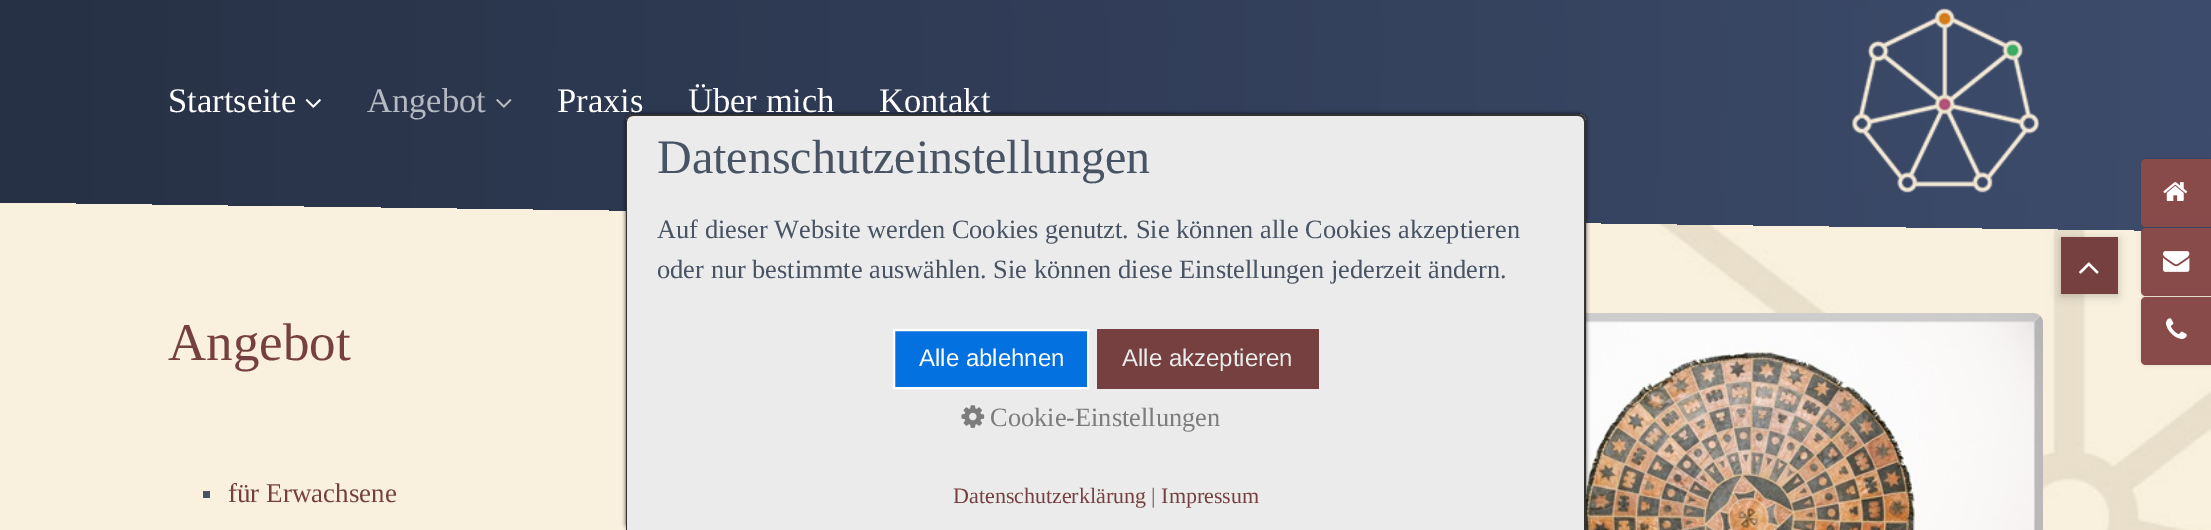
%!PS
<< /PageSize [2211 530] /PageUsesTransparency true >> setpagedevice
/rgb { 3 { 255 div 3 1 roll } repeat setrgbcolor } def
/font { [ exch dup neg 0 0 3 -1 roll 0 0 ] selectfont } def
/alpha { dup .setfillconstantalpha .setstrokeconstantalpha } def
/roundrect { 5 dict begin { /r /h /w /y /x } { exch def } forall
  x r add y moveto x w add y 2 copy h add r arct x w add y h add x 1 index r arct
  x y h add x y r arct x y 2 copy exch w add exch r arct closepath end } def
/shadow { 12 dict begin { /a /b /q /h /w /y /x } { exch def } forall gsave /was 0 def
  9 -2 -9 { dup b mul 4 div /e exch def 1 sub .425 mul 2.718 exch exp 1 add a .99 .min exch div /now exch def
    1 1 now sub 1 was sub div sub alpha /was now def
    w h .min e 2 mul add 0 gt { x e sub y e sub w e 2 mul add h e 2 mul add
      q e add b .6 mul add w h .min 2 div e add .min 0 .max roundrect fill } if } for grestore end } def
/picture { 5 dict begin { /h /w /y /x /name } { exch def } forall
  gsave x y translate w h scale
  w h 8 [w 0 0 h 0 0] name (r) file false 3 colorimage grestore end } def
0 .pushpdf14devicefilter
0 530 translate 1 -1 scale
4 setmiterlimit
255 255 255 rgb
0 0 2211 530 rectfill
gsave 0 0 moveto 2211 0 lineto 2211 203 lineto 0 203 lineto closepath clip newpath
<< /ShadingType 2 /ColorSpace /DeviceRGB /Coords [2211 101 0 101] /Extend [true true] /Function << /FunctionType 2 /Domain [0 1] /C0 [0.239 0.298 0.424] /C1 [0.153 0.192 0.271] /N 1 >> >> shfill grestore
(img/8.rgb) 0 203 2211 327 picture
0 0 0 rgb
2061 239 57 57 0 4.5 0.2 shadow
gsave 0 0 moveto 2211 29 lineto 2211 231 lineto 0 202 lineto closepath clip newpath
<< /ShadingType 2 /ColorSpace /DeviceRGB /Coords [2211 130 0 101] /Extend [true true] /Function << /FunctionType 2 /Domain [0 1] /C0 [0.239 0.298 0.424] /C1 [0.153 0.192 0.271] /N 1 >> >> shfill grestore
(img/1.rgb) 305 99 16 9 picture
(img/2.rgb) 496 99 16 9 picture
(img/3.rgb) 1851 8 189 185 picture
(img/10.rgb) 1586 313 457 217 picture
626 114 960 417 8 2 0.8 shadow
235 235 235 rgb
634 114 moveto 1578 114 lineto 1582.5 114 1586 117.5 1586 122 curveto 1586 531 lineto 626 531 lineto 626 122 lineto 626 117.5 629.5 114 634 114 curveto closepath fill
51 51 51 rgb
633 114 moveto 1578 114 lineto 1582 114 1586 117 1586 122 curveto 1586 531 lineto 626 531 lineto 626 122 lineto 626 117 629 114 633 114 curveto closepath 633 116 moveto 1578 116 lineto 1581 116 1584 118 1584 122 curveto 1584 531 lineto 627 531 lineto 627 122 lineto 627 118 630 116 633 116 curveto closepath eofill
3 113 223 rgb
894 330 moveto 1088 330 lineto 1088 388 lineto 894 388 lineto closepath gsave fill grestore
255 255 255 rgb
2 setlinewidth
stroke
118 64 64 rgb
1097 329 222 60 rectfill
(img/4.rgb) 961 405 24 23 picture
0 0 0 rgb
2141 159 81 68 5 2 0.1 shadow
137 74 74 rgb
2146 159 moveto 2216 159 lineto 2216 227 lineto 2146 227 lineto 2143 227 2141 225 2141 222 curveto 2141 164 lineto 2141 161 2143 159 2146 159 curveto closepath fill
(img/5.rgb) 2163 182 25 19 picture
0 0 0 rgb
2141 228 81 68 5 2 0.1 shadow
137 74 74 rgb
2146 228 moveto 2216 228 lineto 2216 296 lineto 2146 296 lineto 2143 296 2141 294 2141 291 curveto 2141 233 lineto 2141 230 2143 228 2146 228 curveto closepath fill
(img/6.rgb) 2163 251 27 21 picture
0 0 0 rgb
2141 297 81 68 5 2 0.1 shadow
137 74 74 rgb
2146 297 moveto 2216 297 lineto 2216 365 lineto 2146 365 lineto 2143 365 2141 363 2141 360 curveto 2141 302 lineto 2141 299 2143 297 2146 297 curveto closepath fill
(img/7.rgb) 2166 318 21 21 picture
118 64 64 rgb
2061 237 57 57 rectfill
(img/9.rgb) 2079 262 20 12 picture
72 83 99 rgb
203 491 7 7 rectfill
/LiberationSerif-Regular 34.5 font
255 255 255 rgb
168 112 moveto (Startseite) show
181 185 193 rgb
367 112 moveto (Angebot) show
255 255 255 rgb
[
  [(Praxis) 557 112]
  [(Über mich) 688 112]
  [(Kontakt) 879 112]
] { aload pop moveto show } forall
/LiberationSerif-Regular 48 font
72 83 99 rgb
657 173 moveto (Datenschutzeinstellungen) show
/LiberationSerif-Regular 26.4 font
657 238 moveto (Auf dieser Website werden Cookies genutzt. Sie können alle Cookies akzeptieren) show
657 278 moveto (oder nur bestimmte auswählen. Sie können diese Einstellungen jederzeit ändern.) show
/LiberationSans-Regular 24 font
255 255 255 rgb
919 366 moveto (Alle ablehnen) show
235 235 235 rgb
1122 366 moveto (Alle akzeptieren) show
/LiberationSerif-Regular 26.4 font
124 124 124 rgb
990 426 moveto (Cookie-Einstellungen) show
/LiberationSerif-Regular 22 font
118 64 64 rgb
953 503 moveto (Datenschutzerklärung | Impressum) show
/LiberationSerif-Regular 53 font
168 360 moveto (Angebot) show
/LiberationSerif-Regular 27 font
228 502 moveto (für Erwachsene) show
.poppdf14devicefilter showpage
